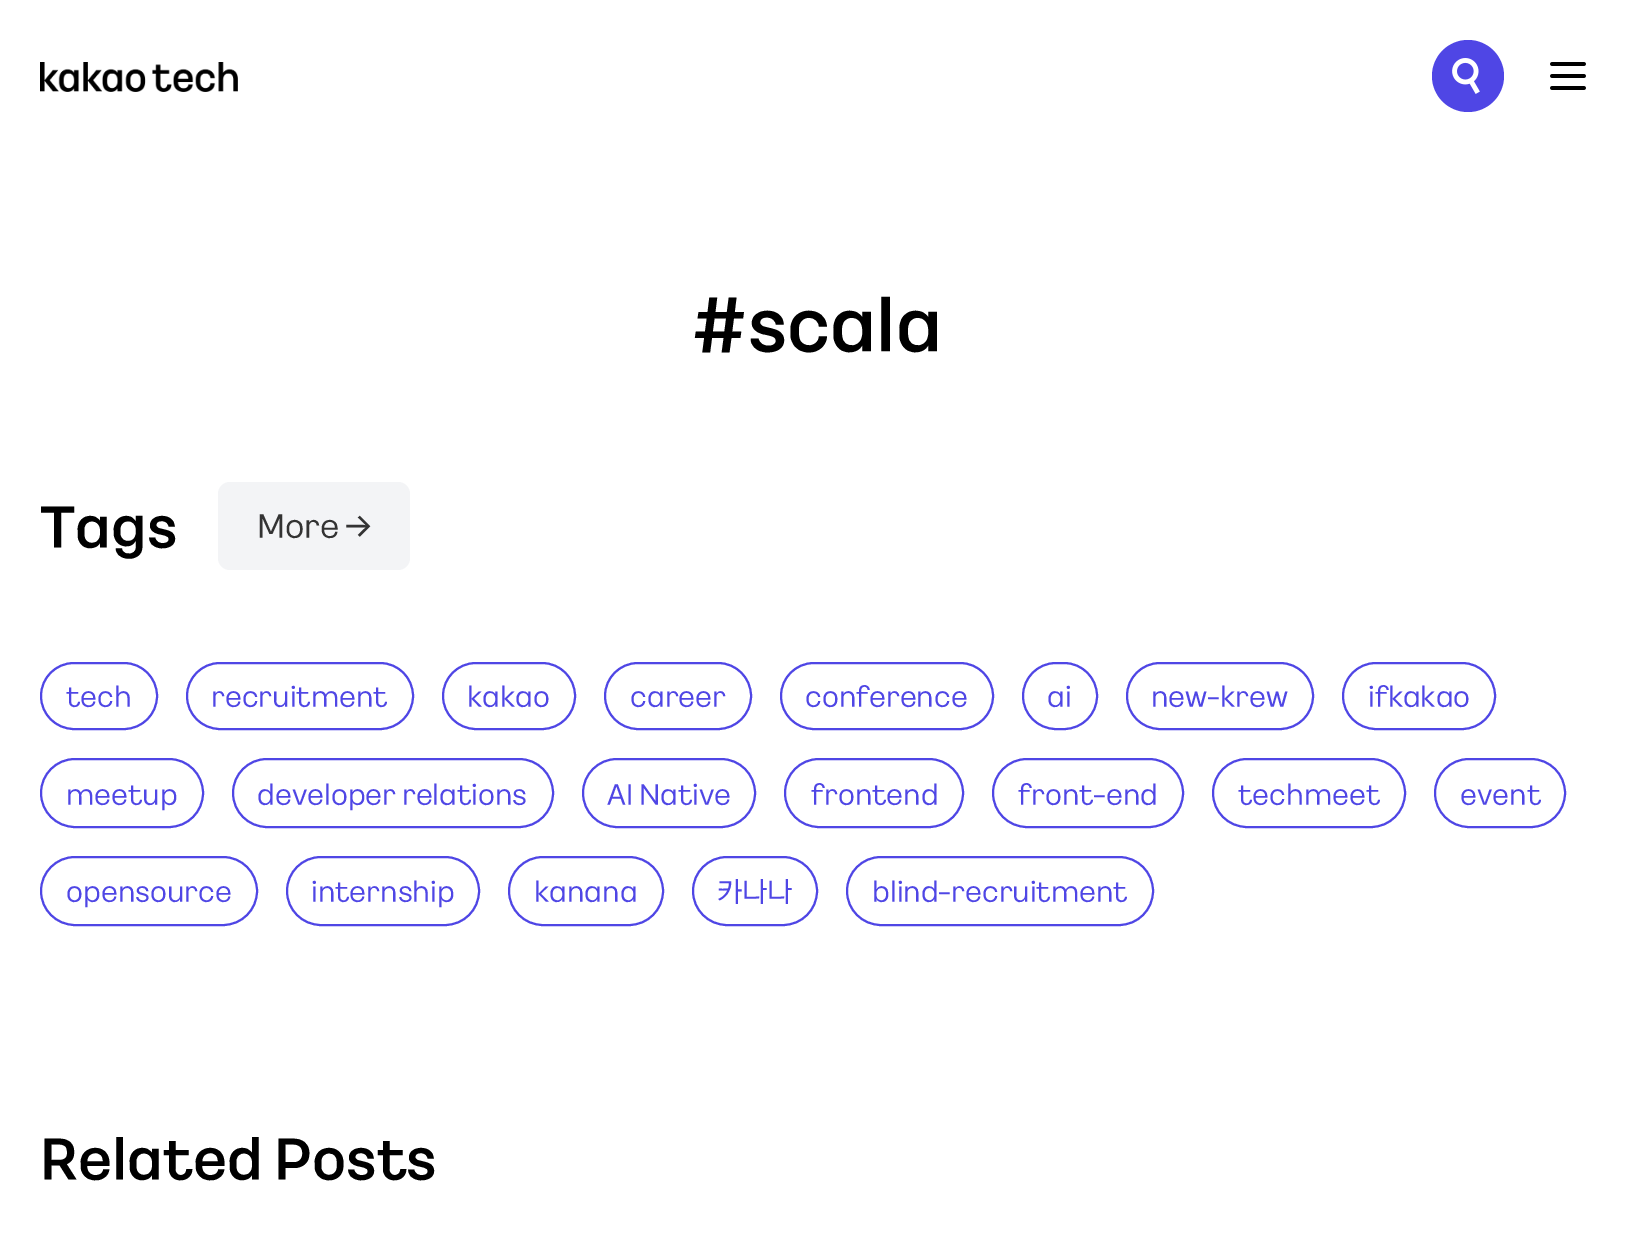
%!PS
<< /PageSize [1632 1243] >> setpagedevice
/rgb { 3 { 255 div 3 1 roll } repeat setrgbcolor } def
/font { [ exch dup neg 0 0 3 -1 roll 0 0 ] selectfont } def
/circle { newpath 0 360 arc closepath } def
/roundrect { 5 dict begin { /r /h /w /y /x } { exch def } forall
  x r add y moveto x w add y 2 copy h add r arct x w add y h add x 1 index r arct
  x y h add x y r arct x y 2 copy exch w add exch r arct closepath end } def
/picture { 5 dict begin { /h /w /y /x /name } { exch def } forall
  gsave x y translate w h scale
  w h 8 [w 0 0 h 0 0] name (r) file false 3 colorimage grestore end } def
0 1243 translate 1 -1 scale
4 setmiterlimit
255 255 255 rgb
0 0 1632 1243 rectfill
(img/1.rgb) 40 62 198 30 picture
79 70 229 rgb
1468 76 36 circle fill
(img/2.rgb) 1452 58 28 36 picture
(img/3.rgb) 1550 62 36 28 picture
243 244 246 rgb
218 482 192 88 12 roundrect fill
79 70 229 rgb
2 setlinewidth
41 663 116 66 33 roundrect stroke
187 663 226 66 33 roundrect stroke
443 663 132 66 33 roundrect stroke
605 663 146 66 33 roundrect stroke
781 663 212 66 33 roundrect stroke
1023 663 74 66 33 roundrect stroke
1127 663 186 66 33 roundrect stroke
1343 663 152 66 33 roundrect stroke
41 759 162 68 34 roundrect stroke
233 759 320 68 34 roundrect stroke
583 759 172 68 34 roundrect stroke
785 759 178 68 34 roundrect stroke
993 759 190 68 34 roundrect stroke
1213 759 192 68 34 roundrect stroke
1435 759 130 68 34 roundrect stroke
41 857 216 68 34 roundrect stroke
287 857 192 68 34 roundrect stroke
509 857 154 68 34 roundrect stroke
693 857 124 68 34 roundrect stroke
847 857 306 68 34 roundrect stroke
/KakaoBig-Bold 72 font
0 0 0 rgb
691 352 moveto (#scala) show
/KakaoBig-Bold 56 font
40 548 moveto (Tags) show
/KakaoBig-Regular 32 font
51 51 51 rgb
257 538 moveto (More →) show
/KakaoBig-Regular 28 font
79 70 229 rgb
[
  [(tech) 66 707]
  [(recruitment) 211 707]
  [(kakao) 467 707]
  [(career) 630 707]
  [(conference) 805 707]
  [(ai) 1047 707]
  [(new-krew) 1151 707]
  [(ifkakao) 1368 707]
  [(meetup) 66 805]
  [(developer relations) 257 805]
  [(AI Native) 607 805]
  [(frontend) 811 805]
  [(front-end) 1018 805]
  [(techmeet) 1238 805]
  [(event) 1460 805]
  [(opensource) 66 902]
  [(internship) 311 902]
  [(kanana) 534 902]
  [(카나나) 717 902]
  [(blind-recruitment) 872 902]
] { aload pop moveto show } forall
/KakaoBig-Bold 56 font
0 0 0 rgb
40 1180 moveto (Related Posts) show
showpage
